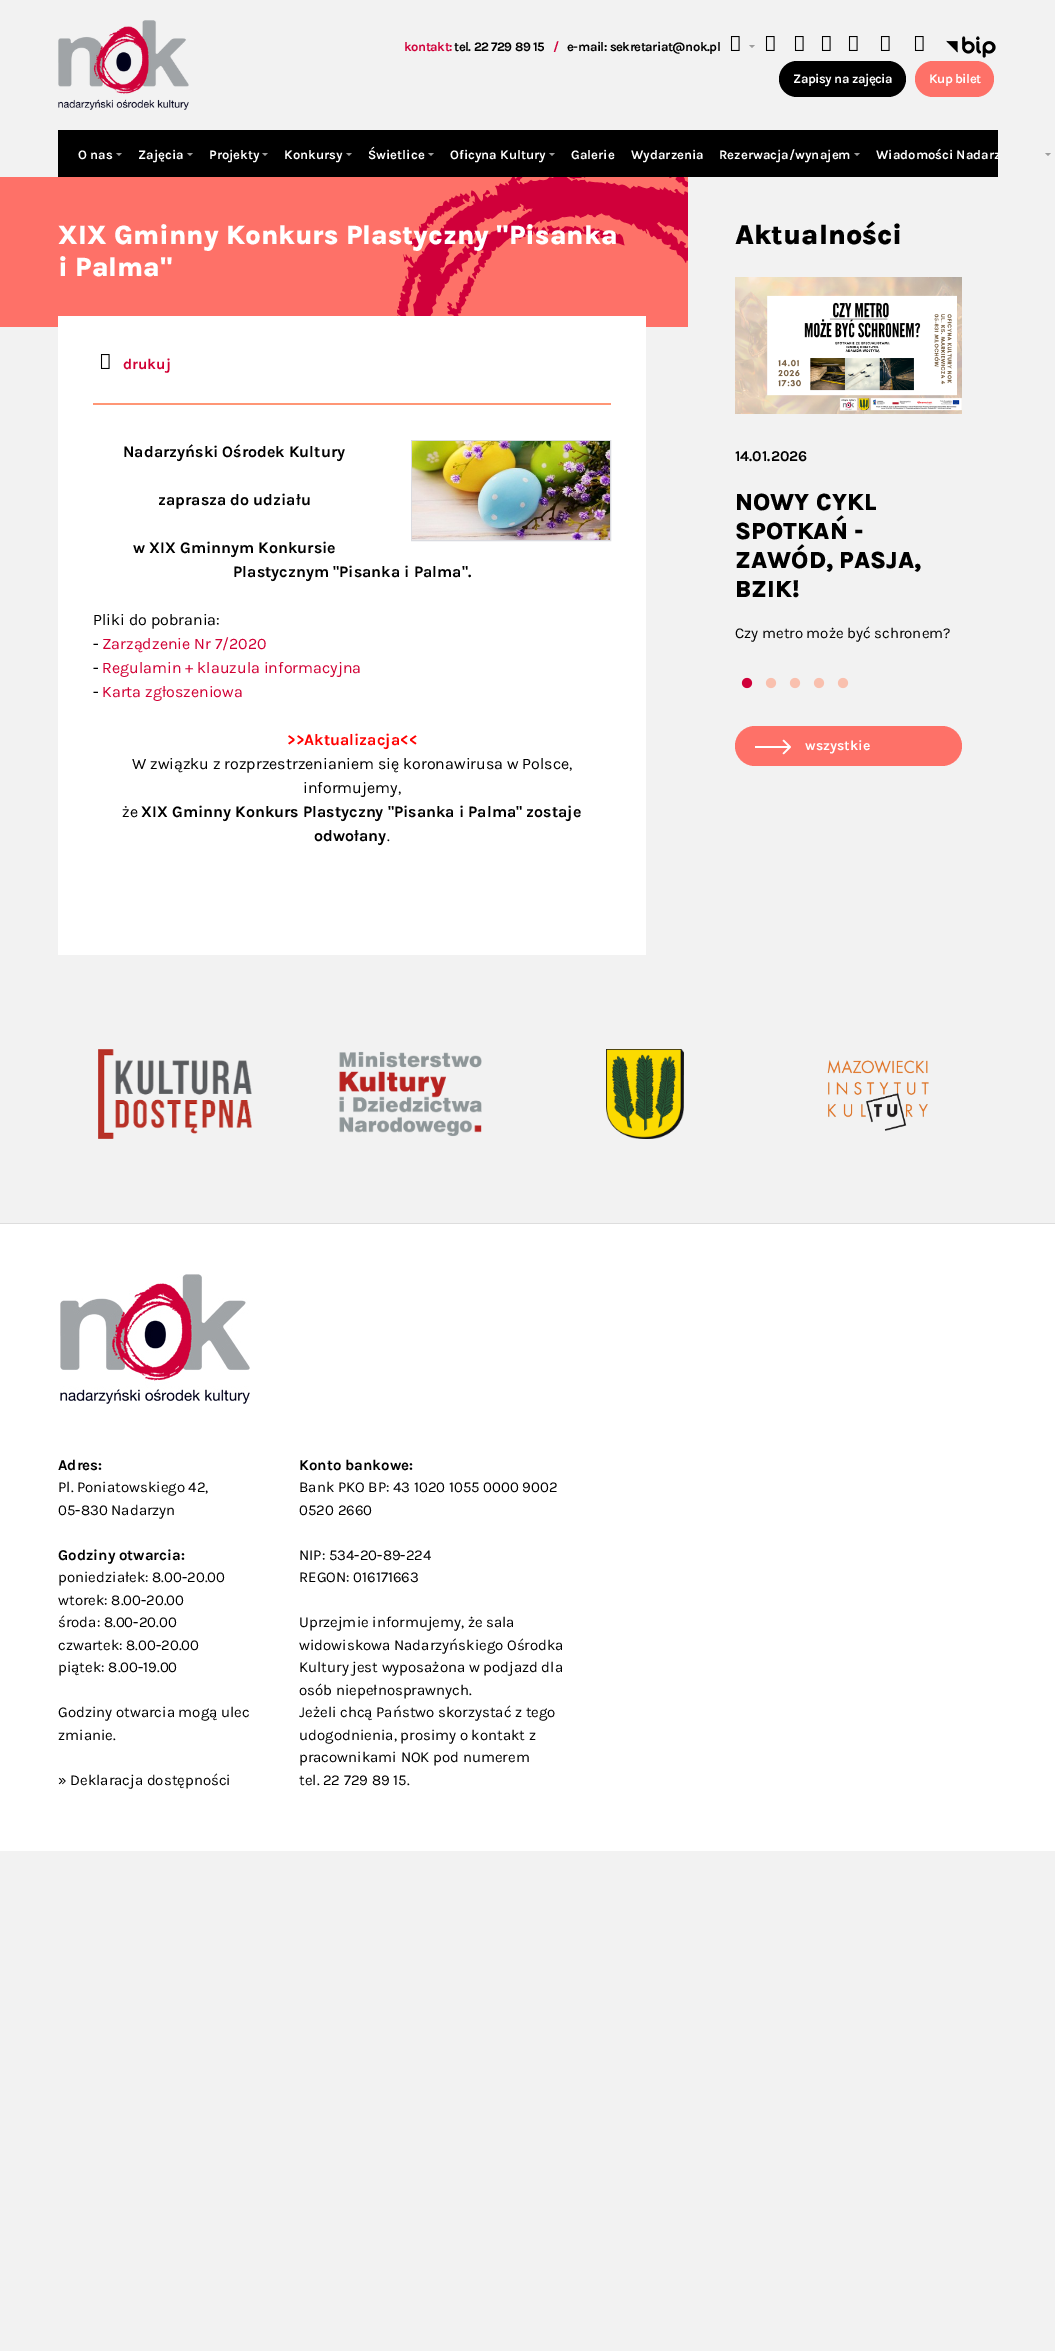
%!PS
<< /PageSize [1055 2351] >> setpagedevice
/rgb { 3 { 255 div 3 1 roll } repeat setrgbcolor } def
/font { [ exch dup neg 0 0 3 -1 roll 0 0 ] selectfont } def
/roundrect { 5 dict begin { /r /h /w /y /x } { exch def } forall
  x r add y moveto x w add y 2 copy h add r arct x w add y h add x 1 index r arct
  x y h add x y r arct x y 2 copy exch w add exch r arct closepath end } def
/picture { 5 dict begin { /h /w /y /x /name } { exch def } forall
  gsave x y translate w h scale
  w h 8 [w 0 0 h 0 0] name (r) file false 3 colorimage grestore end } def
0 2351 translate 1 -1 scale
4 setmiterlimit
242 242 242 rgb
0 0 1055 2351 rectfill
(img/1.rgb) 58 20 131 90 picture
(img/2.rgb) 730 36 10 15 picture
157 157 157 rgb
749 45 moveto 755 45 lineto 752 48 lineto closepath fill
(img/2.rgb) 765 36 10 15 picture
(img/2.rgb) 794 36 10 15 picture
(img/2.rgb) 821 36 10 15 picture
(img/2.rgb) 848 36 10 15 picture
(img/2.rgb) 880 36 10 15 picture
(img/2.rgb) 914 36 10 15 picture
(img/3.rgb) 946 36 50 22 picture
0 0 0 rgb
779 61 127 36 18 roundrect fill
254 113 104 rgb
915 61 79 36 18 roundrect fill
0 0 0 rgb
58 130 940 47 rectfill
157 157 157 rgb
116 153 moveto 122 153 lineto 119 156 lineto closepath fill
187 153 moveto 193 153 lineto 190 156 lineto closepath fill
262 153 moveto 268 153 lineto 265 156 lineto closepath fill
346 153 moveto 352 153 lineto 349 156 lineto closepath fill
428 153 moveto 434 153 lineto 431 156 lineto closepath fill
549 153 moveto 555 153 lineto 552 156 lineto closepath fill
854 153 moveto 860 153 lineto 857 156 lineto closepath fill
1045 153 moveto 1051 153 lineto 1048 156 lineto closepath fill
254 113 104 rgb
0 177 688 150 rectfill
(img/4.rgb) 397 177 291 139 picture
255 255 255 rgb
58 316 588 639 rectfill
255 150 117 rgb
93 403 518 2 rectfill
(img/5.rgb) 100 354 10 15 picture
218 219 224 rgb
411.5 440.5 199 100 rectstroke
(img/6.rgb) 412 441 198 99 picture
(img/7.rgb) 735 277 227 137 picture
(img/8.rgb) 741 677 12 12 picture
(img/9.rgb) 765 677 12 12 picture
(img/9.rgb) 789 677 12 12 picture
(img/9.rgb) 813 677 12 12 picture
(img/9.rgb) 837 677 12 12 picture
254 113 104 rgb
735 726 227 40 20 roundrect fill
(img/10.rgb) 755 739 36 16 picture
(img/11.rgb) 98 1049 154 90 picture
(img/12.rgb) 339 1051 143 86 picture
(img/13.rgb) 606 1049 78 90 picture
(img/14.rgb) 827 1060 102 71 picture
255 255 255 rgb
0 1224 1055 627 rectfill
221 221 221 rgb
0 1223 1055 1 rectfill
(img/15.rgb) 60 1274 190 130 picture
/Karla-Bold 13 font
208 0 58 rgb
404 51 moveto -0.5 0 (kontakt:) ashow
0 0 0 rgb
454 51 moveto -0.5 0 (tel. 22 729 89 15) ashow
208 0 58 rgb
553 51 moveto -0.5 0 (/) ashow
0 0 0 rgb
567 51 moveto -0.5 0 (e-mail: sekretariat@nok.pl) ashow
255 255 255 rgb
793 83 moveto -0.5 0 (Zapisy na zajęcia) ashow
929 83 moveto -0.5 0 (Kup bilet) ashow
[
  [(O nas) 78 159]
  [(Zajęcia) 138 159]
  [(Projekty) 209 159]
  [(Konkursy) 284 159]
  [(Świetlice) 368 159]
  [(Oficyna Kultury) 450 159]
  [(Galerie) 571 159]
  [(Wydarzenia) 631 159]
  [(Rezerwacja/wynajem) 719 159]
  [(Wiadomości Nadarz) 876 159]
] { aload pop moveto show } forall
/Karla-ExtraBold 27.1 font
58 244 moveto (XIX Gminny Konkurs Plastyczny "Pisanka) show
58 276 moveto (i Palma") show
/Karla-Bold 15 font
209 0 52 rgb
123 369 moveto (drukuj) show
/Karla-Bold 16 font
0 0 0 rgb
[
  [(Nadarzyński Ośrodek Kultury) 123 457]
  [(zaprasza do udziału) 158 505]
  [(w XIX Gminnym Konkursie) 133 553]
  [(Plastycznym "Pisanka i Palma".) 233 577]
] { aload pop moveto show } forall
/Karla-Regular 16 font
93 625 moveto (Pliki do pobrania:) show
93 649 moveto (-) show
209 0 52 rgb
102 649 moveto (Zarządzenie Nr 7/2020) show
0 0 0 rgb
93 673 moveto (-) show
209 0 52 rgb
102 673 moveto (Regulamin + klauzula informacyjna) show
0 0 0 rgb
93 697 moveto (-) show
209 0 52 rgb
102 697 moveto (Karta zgłoszeniowa) show
/Karla-Bold 16 font
255 0 0 rgb
287 745 moveto (>>Aktualizacja<<) show
/Karla-Regular 16 font
0 0 0 rgb
[
  [(W związku z rozprzestrzenianiem się koronawirusa w Polsce,) 132 769]
  [(informujemy,) 303 793]
  [(że) 122 817]
] { aload pop moveto show } forall
/Karla-Bold 16 font
141 817 moveto (XIX Gminny Konkurs Plastyczny "Pisanka i Palma" zostaje) show
314 841 moveto (odwołany) show
/Karla-Regular 16 font
387 841 moveto (.) show
/Karla-ExtraBold 28 font
735 244 moveto (Aktualności) show
/Karla-Bold 15 font
735 461 moveto (14.01.2026) show
/Karla-ExtraBold 24 font
[
  [(NOWY CYKL) 735 510]
  [(SPOTKAŃ -) 735 539]
  [(ZAWÓD, PASJA,) 735 568]
  [(BZIK!) 735 597]
] { aload pop moveto show } forall
/Karla-Regular 15 font
735 638 moveto (Czy metro może być schronem?) show
/Karla-Bold 14 font
255 255 255 rgb
805 750 moveto (wszystkie) show
/Karla-Bold 15 font
0 0 0 rgb
58 1470 moveto (Adres:) show
/Karla-Regular 15 font
58 1492 moveto (Pl. Poniatowskiego 42,) show
58 1515 moveto (05-830 Nadarzyn) show
/Karla-Bold 15 font
58 1560 moveto (Godziny otwarcia:) show
/Karla-Regular 15 font
[
  [(poniedziałek: 8.00-20.00) 58 1582]
  [(wtorek: 8.00-20.00) 58 1605]
  [(środa: 8.00-20.00) 58 1627]
  [(czwartek: 8.00-20.00) 58 1650]
  [(piątek: 8.00-19.00) 58 1672]
  [(Godziny otwarcia mogą ulec) 58 1717]
  [(zmianie.) 58 1740]
  [(» Deklaracja dostępności) 58 1785]
] { aload pop moveto show } forall
/Karla-Bold 15 font
299 1470 moveto (Konto bankowe:) show
/Karla-Regular 15 font
[
  [(Bank PKO BP: 43 1020 1055 0000 9002) 299 1492]
  [(0520 2660) 299 1515]
  [(NIP: 534-20-89-224) 299 1560]
  [(REGON: 016171663) 299 1582]
  [(Uprzejmie informujemy, że sala) 299 1627]
  [(widowiskowa Nadarzyńskiego Ośrodka) 299 1650]
  [(Kultury jest wyposażona w podjazd dla) 299 1672]
  [(osób niepełnosprawnych.) 299 1695]
  [(Jeżeli chcą Państwo skorzystać z tego) 299 1717]
  [(udogodnienia, prosimy o kontakt z) 299 1740]
  [(pracownikami NOK pod numerem) 299 1762]
  [(tel. 22 729 89 15.) 299 1785]
] { aload pop moveto show } forall
showpage
